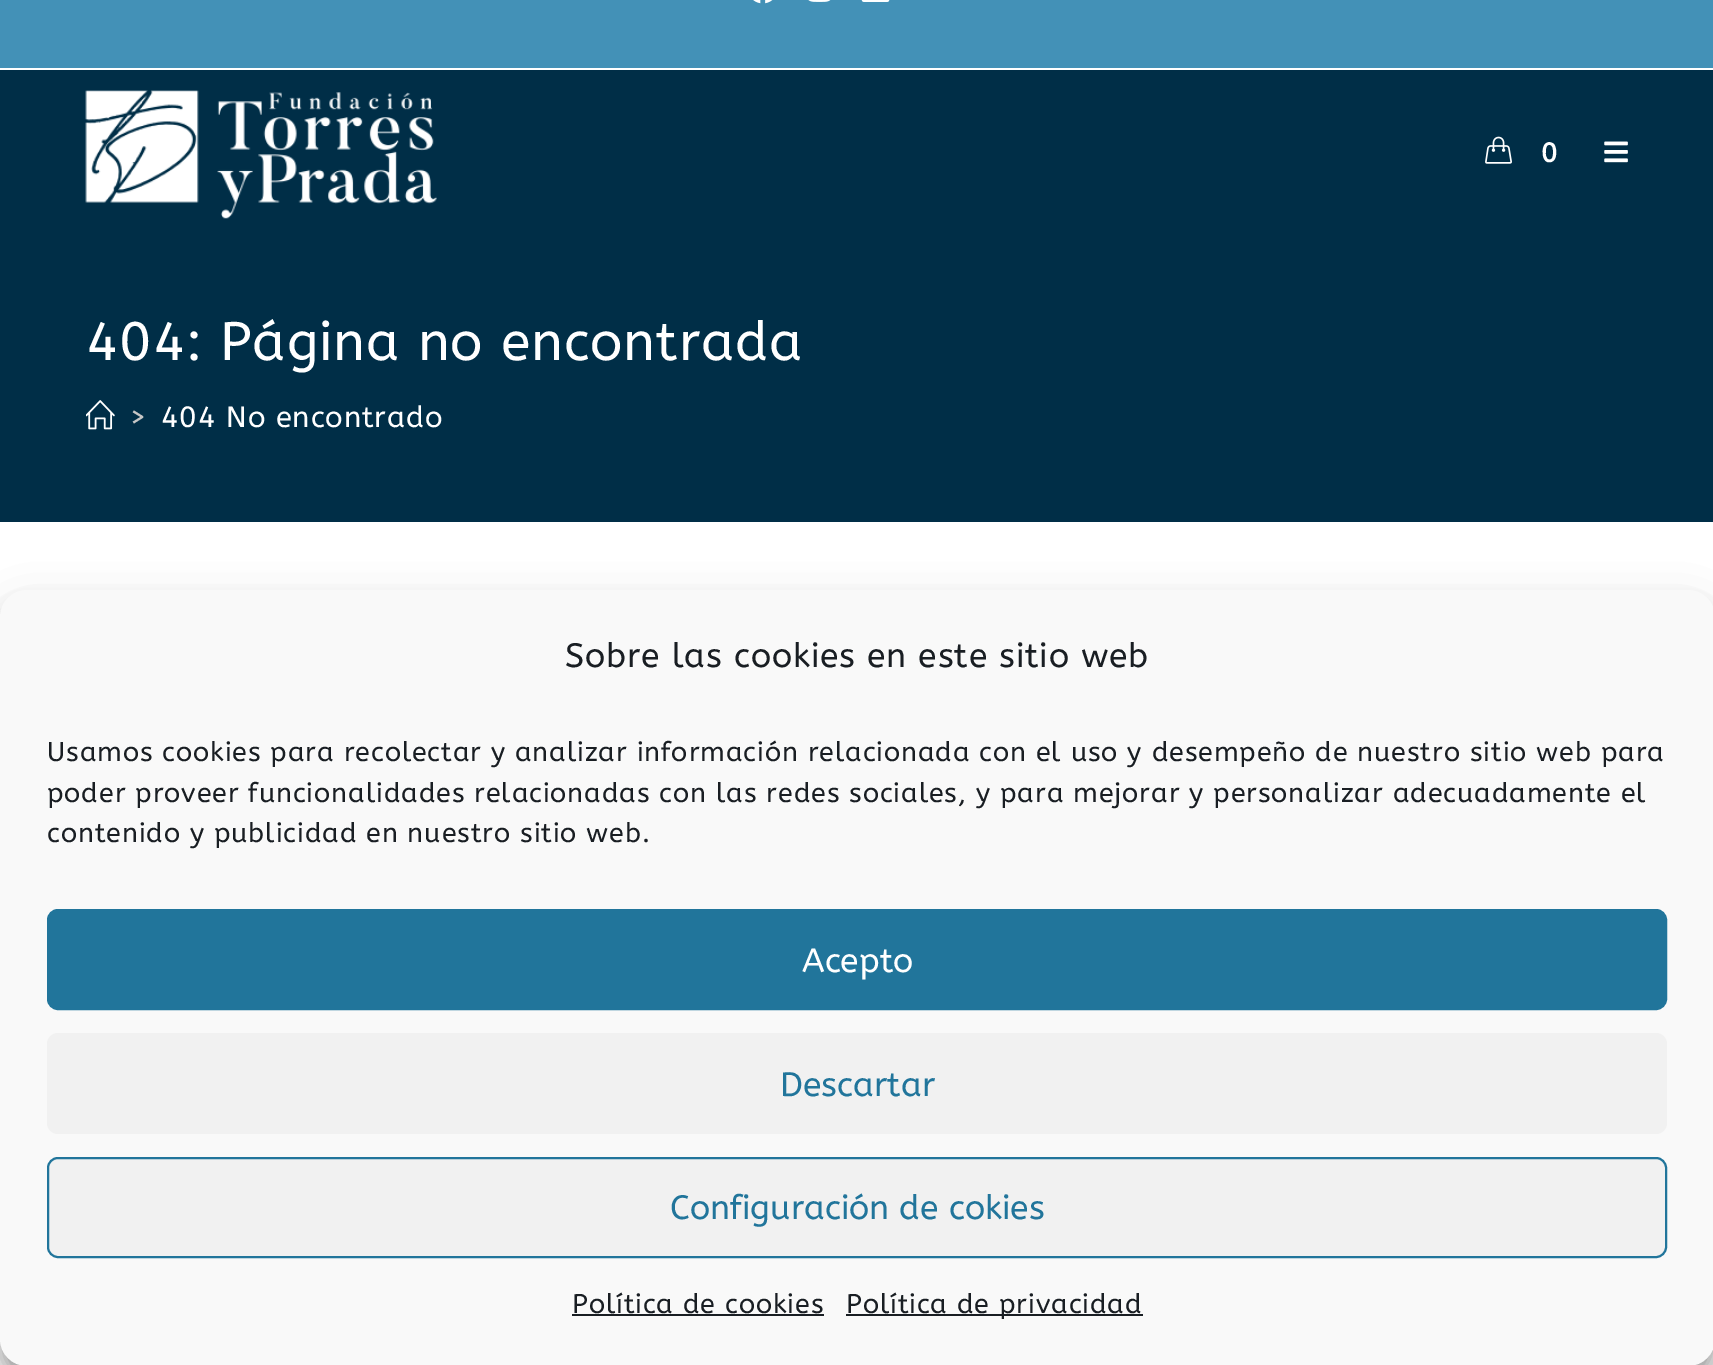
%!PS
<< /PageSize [1713 1365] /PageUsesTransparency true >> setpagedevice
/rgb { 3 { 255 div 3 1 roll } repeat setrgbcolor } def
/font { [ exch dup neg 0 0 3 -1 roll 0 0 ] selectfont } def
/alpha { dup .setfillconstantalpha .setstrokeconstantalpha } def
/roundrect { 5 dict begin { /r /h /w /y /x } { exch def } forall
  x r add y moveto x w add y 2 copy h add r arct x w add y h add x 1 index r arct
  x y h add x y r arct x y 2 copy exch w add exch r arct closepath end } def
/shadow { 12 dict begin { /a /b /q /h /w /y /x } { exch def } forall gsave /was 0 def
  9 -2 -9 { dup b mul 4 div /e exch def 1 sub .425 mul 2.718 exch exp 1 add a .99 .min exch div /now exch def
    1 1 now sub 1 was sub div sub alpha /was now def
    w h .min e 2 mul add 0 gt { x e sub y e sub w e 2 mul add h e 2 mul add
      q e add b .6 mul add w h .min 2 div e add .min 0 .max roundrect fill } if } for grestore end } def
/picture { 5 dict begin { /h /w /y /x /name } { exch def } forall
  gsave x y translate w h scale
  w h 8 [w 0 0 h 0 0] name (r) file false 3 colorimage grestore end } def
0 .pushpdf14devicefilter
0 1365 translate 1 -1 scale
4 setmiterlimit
255 255 255 rgb
0 0 1713 1365 rectfill
67 145 183 rgb
0 0 1713 68 rectfill
(img/1.rgb) 753 0 20 4 picture
(img/2.rgb) 808 0 23 2 picture
(img/3.rgb) 861 0 29 2 picture
0 46 71 rgb
0 70 1713 452 rectfill
(img/4.rgb) 85 90 352 129 picture
(img/5.rgb) 1485 136 27 28 picture
(img/6.rgb) 1604 141 24 22 picture
(img/7.rgb) 86 400 29 30 picture
0 0 0 rgb
0 603 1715 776 27 7 0.23 shadow
0 612 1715 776 27 22.5 0.19 shadow
249 249 249 rgb
1 591 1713 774 26 roundrect gsave fill grestore
2 setlinewidth
stroke
33 117 155 rgb
48 910 1618 99 10 roundrect gsave fill grestore
stroke
241 241 241 rgb
47 1033 1620 101 11 roundrect fill
48 1158 1618 99 10 roundrect gsave fill grestore
33 117 155 rgb
stroke
25 30 35 rgb
572 1314 252 2 rectfill
846 1314 297 2 rectfill
/ABeeZee-Bold 27 font
255 255 255 rgb
1541 162 moveto 1 0 (0) ashow
/ABeeZee-Regular 54 font
86 360 moveto 0.9 0 (404: Página no encontrada) ashow
/ABeeZee-Regular 29.25 font
198 198 198 rgb
129 427 moveto 0.9 0 (>) ashow
255 255 255 rgb
161 427 moveto 0.9 0 (404 No encontrado) ashow
/ABeeZee-Regular 33.75 font
25 30 35 rgb
565 667 moveto 0.9 0 (Sobre las cookies en este sitio web) ashow
/ABeeZee-Regular 27 font
47 761 moveto 0.9 0 (Usamos cookies para recolectar y analizar información relacionada con el uso y desempeño de nuestro sitio web para) ashow
47 802 moveto 0.9 0 (poder proveer funcionalidades relacionadas con las redes sociales, y para mejorar y personalizar adecuadamente el) ashow
47 842 moveto 0.9 0 (contenido y publicidad en nuestro sitio web.) ashow
/ABeeZee-Regular 33.75 font
255 255 255 rgb
802 972 moveto (Acepto) show
33 117 155 rgb
780 1096 moveto (Descartar) show
670 1219 moveto (Configuración de cokies) show
/ABeeZee-Regular 27 font
25 30 35 rgb
572 1313 moveto 0.9 0 (Política de cookies) ashow
846 1313 moveto 0.9 0 (Política de privacidad) ashow
.poppdf14devicefilter showpage
